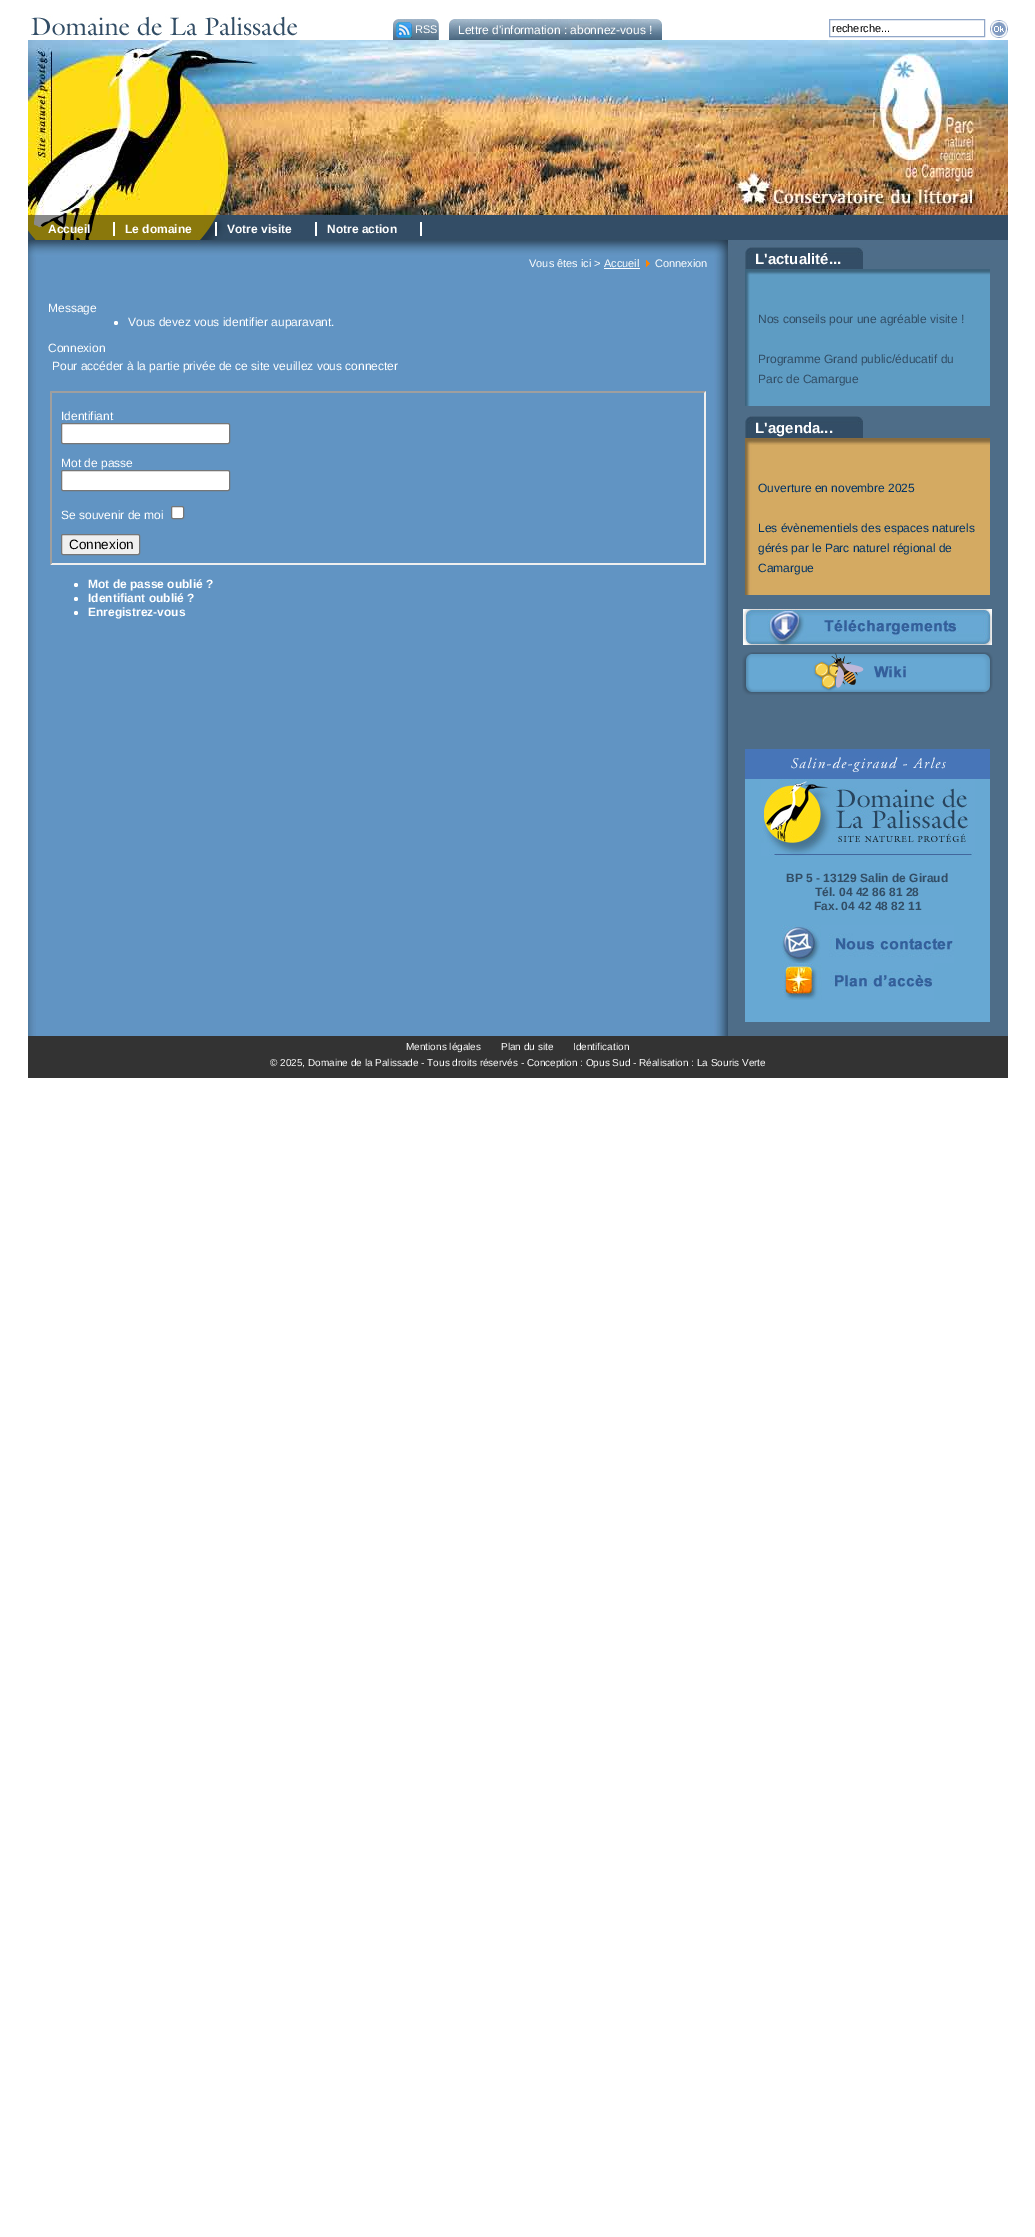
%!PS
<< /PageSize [1035 2237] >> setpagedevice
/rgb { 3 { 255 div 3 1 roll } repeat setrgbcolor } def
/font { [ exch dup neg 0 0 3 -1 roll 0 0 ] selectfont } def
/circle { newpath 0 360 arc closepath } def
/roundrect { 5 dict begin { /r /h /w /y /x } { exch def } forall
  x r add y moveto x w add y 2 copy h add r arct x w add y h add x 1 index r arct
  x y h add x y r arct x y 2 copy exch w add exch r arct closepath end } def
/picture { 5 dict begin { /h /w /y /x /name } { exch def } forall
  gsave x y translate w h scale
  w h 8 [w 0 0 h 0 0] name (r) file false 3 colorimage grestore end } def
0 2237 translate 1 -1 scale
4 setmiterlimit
255 255 255 rgb
0 0 1035 2237 rectfill
(img/1.rgb) 31 14 267 24 picture
(img/2.rgb) 393 19 46 21 picture
(img/3.rgb) 396 22 16 16 picture
(img/4.rgb) 449 19 213 21 picture
145 167 200 rgb
829.5 19.5 155 17 rectstroke
(img/5.rgb) 990 20 18 18 picture
(img/6.rgb) 28 40 980 175 picture
(img/7.rgb) 28 215 980 42 picture
[
  [113 222 2 14 255 255 255]
  [215 222 2 14 255 255 255]
  [315 222 2 14 255 255 255]
  [420 222 2 14 255 255 255]
] { aload pop rgb rectfill } forall
(img/8.rgb) 28 257 700 779 picture
(img/9.rgb) 646 260 4 7 picture
604 268 36 1 rectfill
116 323 2 circle fill
159 159 159 rgb
50 391 moveto 706 391 lineto 704 393 lineto 52 393 lineto closepath fill
239 239 239 rgb
706 391 moveto 706 565 lineto 704 563 lineto 704 393 lineto closepath fill
706 565 moveto 50 565 lineto 52 563 lineto 704 563 lineto closepath fill
159 159 159 rgb
50 565 moveto 50 391 lineto 52 393 lineto 52 563 lineto closepath fill
255 255 255 rgb
61.5 423.5 168 20 1.5 roundrect gsave fill grestore
118 118 118 rgb
stroke
255 255 255 rgb
61.5 470.5 168 20 1.5 roundrect gsave fill grestore
118 118 118 rgb
stroke
255 255 255 rgb
171.5 506.5 12 12 1.5 roundrect gsave fill grestore
118 118 118 rgb
stroke
239 239 239 rgb
61.5 534.5 78 20 1.5 roundrect gsave fill grestore
118 118 118 rgb
stroke
255 255 255 rgb
76 585 2 circle fill
76 599 2 circle fill
76 613 2 circle fill
78 109 136 rgb
728 257 280 779 rectfill
(img/10.rgb) 745 247 118 22 picture
(img/11.rgb) 745 269 245 7 picture
(img/12.rgb) 745 276 245 130 picture
(img/10.rgb) 745 416 118 22 picture
(img/13.rgb) 745 438 245 7 picture
(img/14.rgb) 745 445 245 150 picture
(img/15.rgb) 743 609 249 36 picture
(img/16.rgb) 742 652 251 43 picture
71 117 184 rgb
745 749 245 30 rectfill
(img/17.rgb) 791 757 155 15 picture
103 168 211 rgb
745 779 245 243 rectfill
(img/18.rgb) 761 779 214 77 picture
(img/19.rgb) 781 925 173 38 picture
(img/20.rgb) 782 963 152 37 picture
51 51 51 rgb
28 1036 980 42 rectfill
/LiberationSans-Regular 11 font
255 255 255 rgb
415 33 moveto (RSS) show
/LiberationSans-Regular 12 font
458 34 moveto (Lettre d'information : abonnez-vous !) show
/LiberationSans-Regular 11 font
0 0 0 rgb
832 32 moveto (recherche...) show
/LiberationSans-Bold 12 font
255 255 255 rgb
[
  [(Accueil) 48 233]
  [(Le domaine) 125 233]
  [(Votre visite) 227 233]
  [(Notre action) 327 233]
] { aload pop moveto show } forall
/LiberationSans-Regular 11 font
529 267 moveto (Vous êtes ici > Accueil) show
655 267 moveto (Connexion) show
/LiberationSans-Regular 12 font
[
  [(Message) 48 312]
  [(Vous devez vous identifier auparavant.) 128 326]
  [(Connexion) 48 352]
  [(Pour accéder à la partie privée de ce site veuillez vous connecter) 52 370]
  [(Identifiant) 61 420]
  [(Mot de passe) 61 467]
  [(Se souvenir de moi) 61 519]
] { aload pop moveto show } forall
/LiberationSans-Regular 13.5 font
0 0 0 rgb
69 549 moveto (Connexion) show
/LiberationSans-Bold 12 font
255 255 255 rgb
[
  [(Mot de passe oublié ?) 88 588]
  [(Identifiant oublié ?) 88 602]
  [(Enregistrez-vous) 88 616]
] { aload pop moveto show } forall
/LiberationSans-Bold 15 font
755 264 moveto (L'actualité...) show
/LiberationSans-Regular 12 font
50 77 101 rgb
[
  [(Nos conseils pour une agréable visite !) 758 323]
  [(Programme Grand public/éducatif du) 758 363]
  [(Parc de Camargue) 758 383]
] { aload pop moveto show } forall
/LiberationSans-Bold 15 font
255 255 255 rgb
755 433 moveto (L'agenda...) show
/LiberationSans-Regular 12 font
0 51 102 rgb
[
  [(Ouverture en novembre 2025) 758 492]
  [(Les évènementiels des espaces naturels) 758 532]
  [(gérés par le Parc naturel régional de) 758 552]
  [(Camargue) 758 572]
] { aload pop moveto show } forall
/LiberationSans-Bold 12 font
50 77 101 rgb
[
  [(BP 5 - 13129 Salin de Giraud) 786 882]
  [(Tél. 04 42 86 81 28) 815 896]
  [(Fax. 04 42 48 82 11) 814 910]
] { aload pop moveto show } forall
/LiberationSans-Regular 10 font
255 255 255 rgb
[
  [(Mentions légales) 406 1050]
  [(Plan du site) 501 1050]
  [(Identification) 573 1050]
  [(© 2025, Domaine de la Palissade - Tous droits réservés - Conception : Opus Sud - Réalisation : La Souris Verte) 270 1066]
] { aload pop moveto show } forall
showpage
